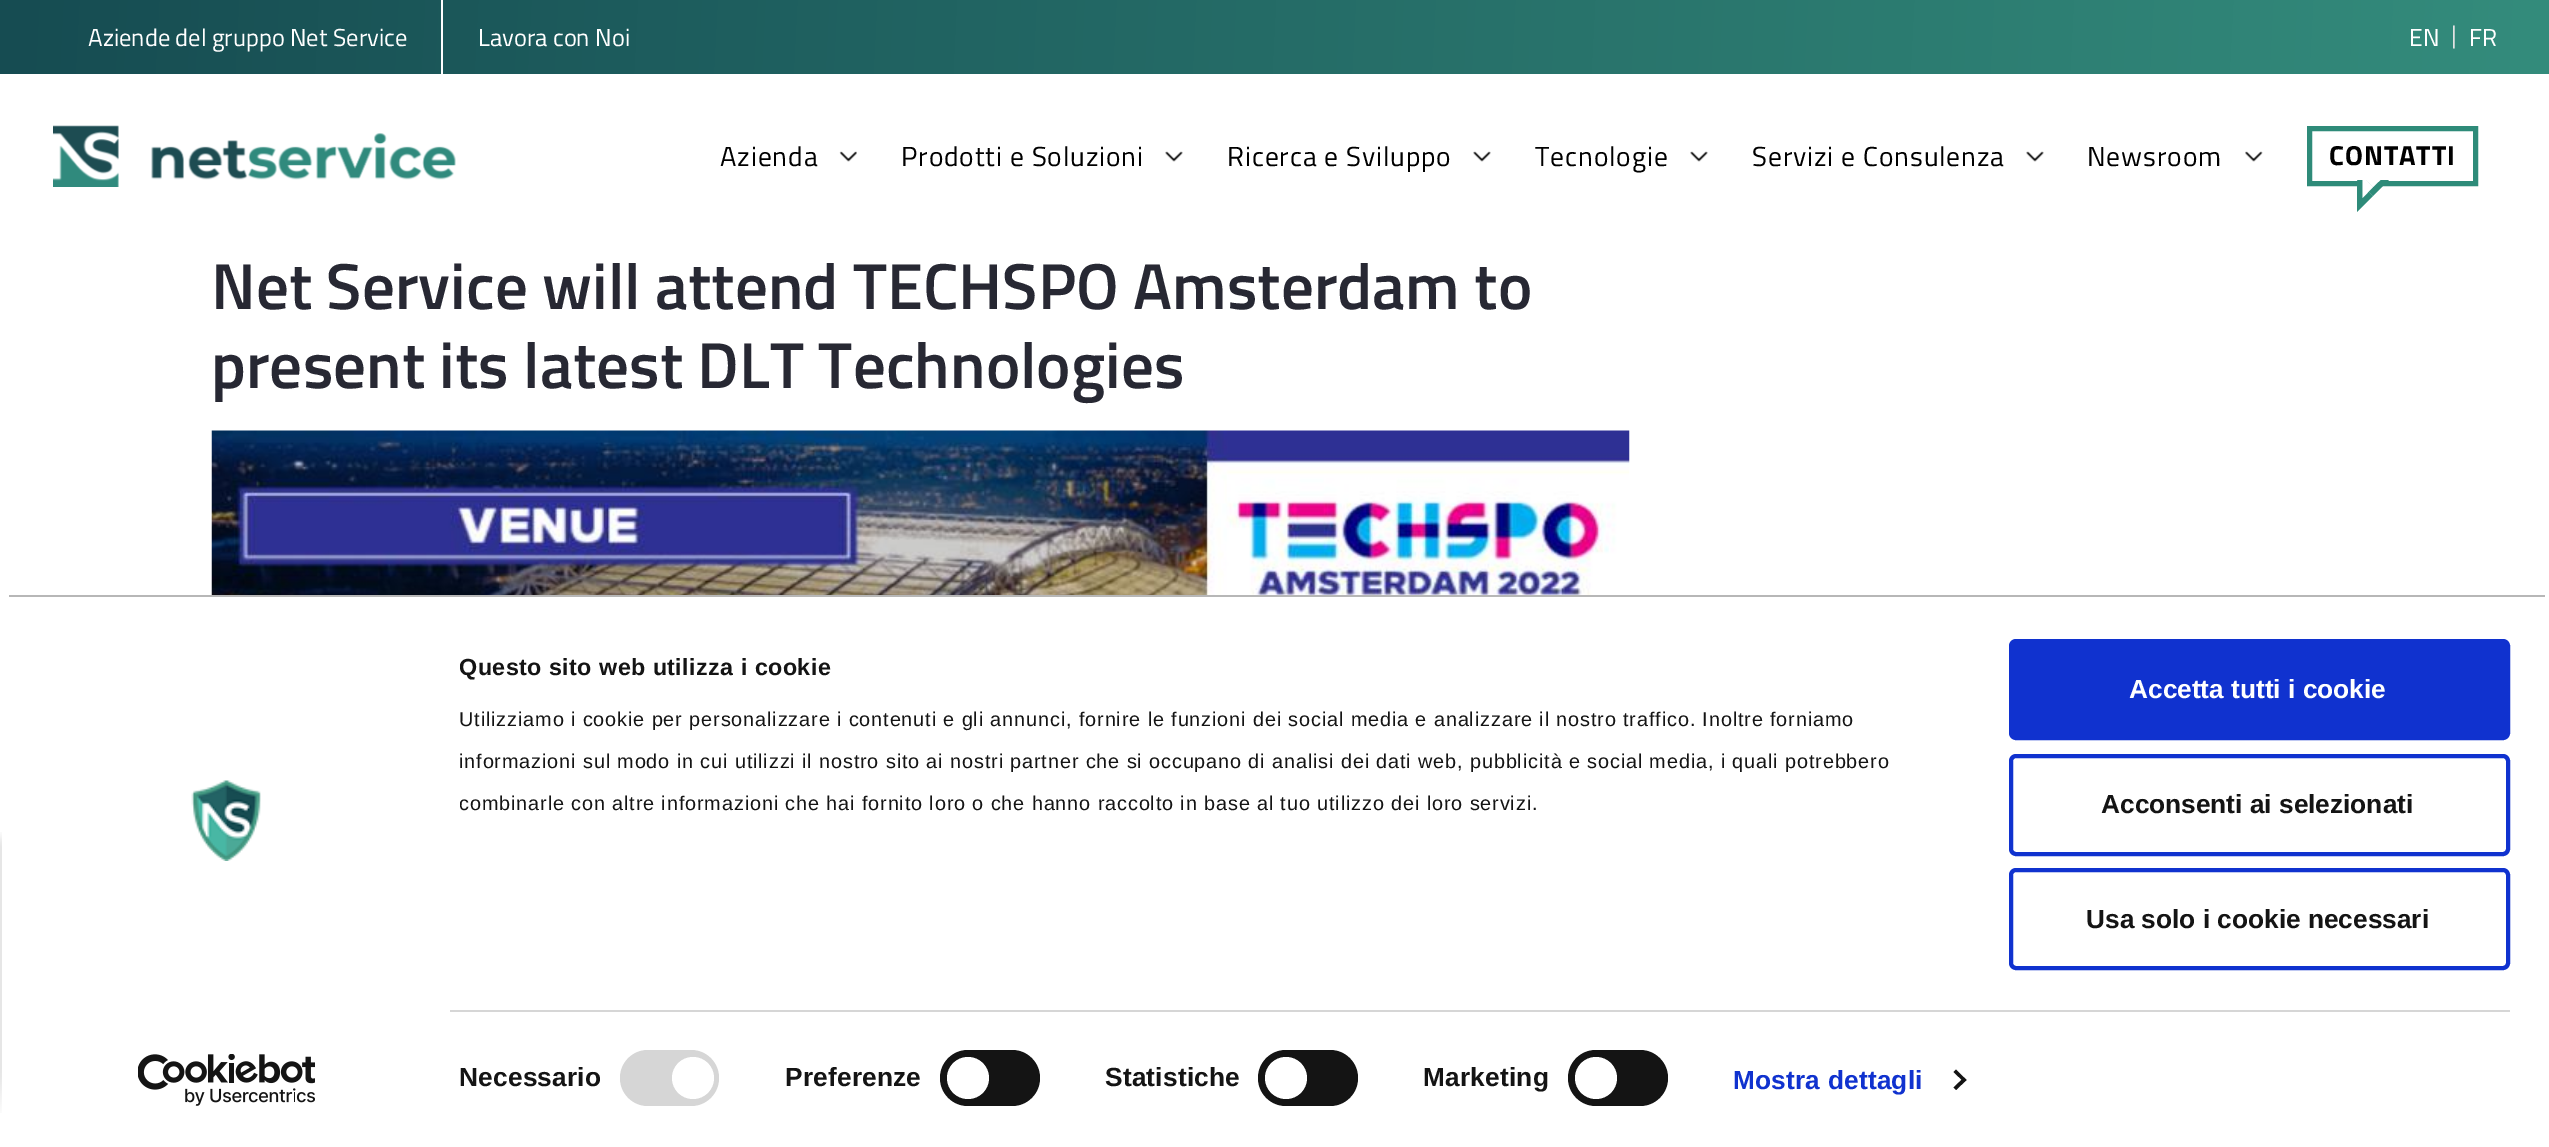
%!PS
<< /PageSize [2549 1147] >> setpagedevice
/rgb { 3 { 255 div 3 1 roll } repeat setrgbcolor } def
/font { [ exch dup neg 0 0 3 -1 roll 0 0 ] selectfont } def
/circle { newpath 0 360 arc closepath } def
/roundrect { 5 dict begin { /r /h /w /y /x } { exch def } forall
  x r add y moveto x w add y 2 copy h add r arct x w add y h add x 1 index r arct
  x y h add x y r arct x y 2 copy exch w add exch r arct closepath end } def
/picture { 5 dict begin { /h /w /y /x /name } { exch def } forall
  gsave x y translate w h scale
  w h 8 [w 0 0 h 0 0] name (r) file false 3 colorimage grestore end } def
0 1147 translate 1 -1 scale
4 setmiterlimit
255 255 255 rgb
0 0 2549 1147 rectfill
gsave 0 0 moveto 2549 0 lineto 2549 74 lineto 0 74 lineto closepath clip newpath
<< /ShadingType 2 /ColorSpace /DeviceRGB /Coords [1.6 -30 2548 103] /Extend [true true] /Function << /FunctionType 2 /Domain [0 1] /C0 [0.086 0.298 0.322] /C1 [0.204 0.549 0.486] /N 1 >> >> shfill grestore
441 0 2 75 rectfill
(img/1.rgb) 53 125 403 62 picture
(img/2.rgb) 839 151 18 11 picture
(img/3.rgb) 1165 151 18 11 picture
(img/3.rgb) 1473 151 18 11 picture
(img/3.rgb) 1690 151 18 11 picture
(img/3.rgb) 2026 151 18 11 picture
(img/4.rgb) 2245 151 18 11 picture
46 139 121 rgb
5 setlinewidth
2309.5 128.5 166 55 rectstroke
2357 180 moveto 2389 180 lineto 2373 196 lineto closepath fill
2357 212 moveto 2357 180 lineto 2373 196 lineto closepath fill
255 255 255 rgb
2362.5 177 moveto 2383.5 177 lineto 2373 187 lineto closepath fill
2362.5 198 moveto 2362.5 177 lineto 2373 187 lineto closepath fill
(img/5.rgb) 0 832 2 281 picture
(img/6.rgb) 211 430 1419 165 picture
183 183 183 rgb
9 595 2536 2 rectfill
(img/7.rgb) 191 780 70 81 picture
(img/8.rgb) 138 1054 177 52 picture
214 214 214 rgb
450 1010 2060 2 rectfill
620 1050 99 56 28 roundrect fill
255 255 255 rgb
693 1078 21 circle fill
20 20 20 rgb
940 1050 100 56 28 roundrect fill
255 255 255 rgb
968 1078 21 circle fill
20 20 20 rgb
1258 1050 100 56 28 roundrect fill
255 255 255 rgb
1286 1078 21 circle fill
20 20 20 rgb
1568 1050 100 56 28 roundrect fill
255 255 255 rgb
1596 1078 21 circle fill
20 20 20 rgb
1956 1069.5 moveto 1966.5 1080 lineto 1964 1082 lineto 1953.5 1072 lineto closepath fill
1964 1077.5 moveto 1966.5 1080 lineto 1956 1090 lineto 1953.5 1087.5 lineto closepath fill
16 50 207 rgb
2011 641 497 97 5 roundrect gsave fill grestore
4 setlinewidth
stroke
2011 756 497 98 5 roundrect stroke
2011 870 497 98 5 roundrect stroke
/TitilliumWeb-Regular 24.5 font
255 255 255 rgb
[
  [(Aziende del gruppo Net Service) 88 46]
  [(Lavora con Noi) 478 46]
  [(EN) 2409 46]
] { aload pop moveto show } forall
226 226 226 rgb
2451 43 moveto (|) show
255 255 255 rgb
2469 46 moveto (FR) show
/TitilliumWeb-Regular 27.5 font
0 0 0 rgb
720 166 moveto 0.9 0 (Azienda) ashow
901 166 moveto 0.9 0 (Prodotti e Soluzioni) ashow
1227 166 moveto 0.9 0 (Ricerca e Sviluppo) ashow
1535 166 moveto 0.9 0 (Tecnologie) ashow
1752 166 moveto 0.9 0 (Servizi e Consulenza) ashow
2087 166 moveto 0.9 0 (Newsroom) ashow
/TitilliumWeb-Bold 27.5 font
2329 165 moveto 0.9 0 (CONTATTI) ashow
/TitilliumWeb-SemiBold 65.1 font
39 40 51 rgb
211 309 moveto (Net Service will attend TECHSPO Amsterdam to) show
211 388 moveto (present its latest DLT Technologies) show
gsave
460 649 1498 310 rectclip
/LiberationSans-Bold 23.3 font
20 20 20 rgb
459 675 moveto 0.45 0 (Questo sito web utilizza i cookie) ashow
grestore
/LiberationSans-Regular 19.83 font
20 20 20 rgb
459 726 moveto 0.88 0 (Utilizziamo i cookie per personalizzare i contenuti e gli annunci, fornire le funzioni dei social media e analizzare il nostro traffico. Inoltre forniamo) ashow
459 768 moveto 0.88 0 (informazioni sul modo in cui utilizzi il nostro sito ai nostri partner che si occupano di analisi dei dati web, pubblicità e social media, i quali potrebbero) ashow
gsave
460 649 1498 310 rectclip
459 810 moveto 0.88 0 (combinarle con altre informazioni che hai fornito loro o che hanno raccolto in base al tuo utilizzo dei loro servizi.) ashow
grestore
/LiberationSans-Bold 26.25 font
459 1086 moveto 0.2 0 (Necessario) ashow
785 1086 moveto 0.2 0 (Preferenze) ashow
1105 1086 moveto 0.2 0 (Statistiche) ashow
1423 1086 moveto 0.2 0 (Marketing) ashow
16 50 207 rgb
1733 1089 moveto 0.2 0 (Mostra dettagli) ashow
255 255 255 rgb
2129 698 moveto (Accetta tutti i cookie) show
20 20 20 rgb
2101 813 moveto (Acconsenti ai selezionati) show
2086 928 moveto (Usa solo i cookie necessari) show
showpage
